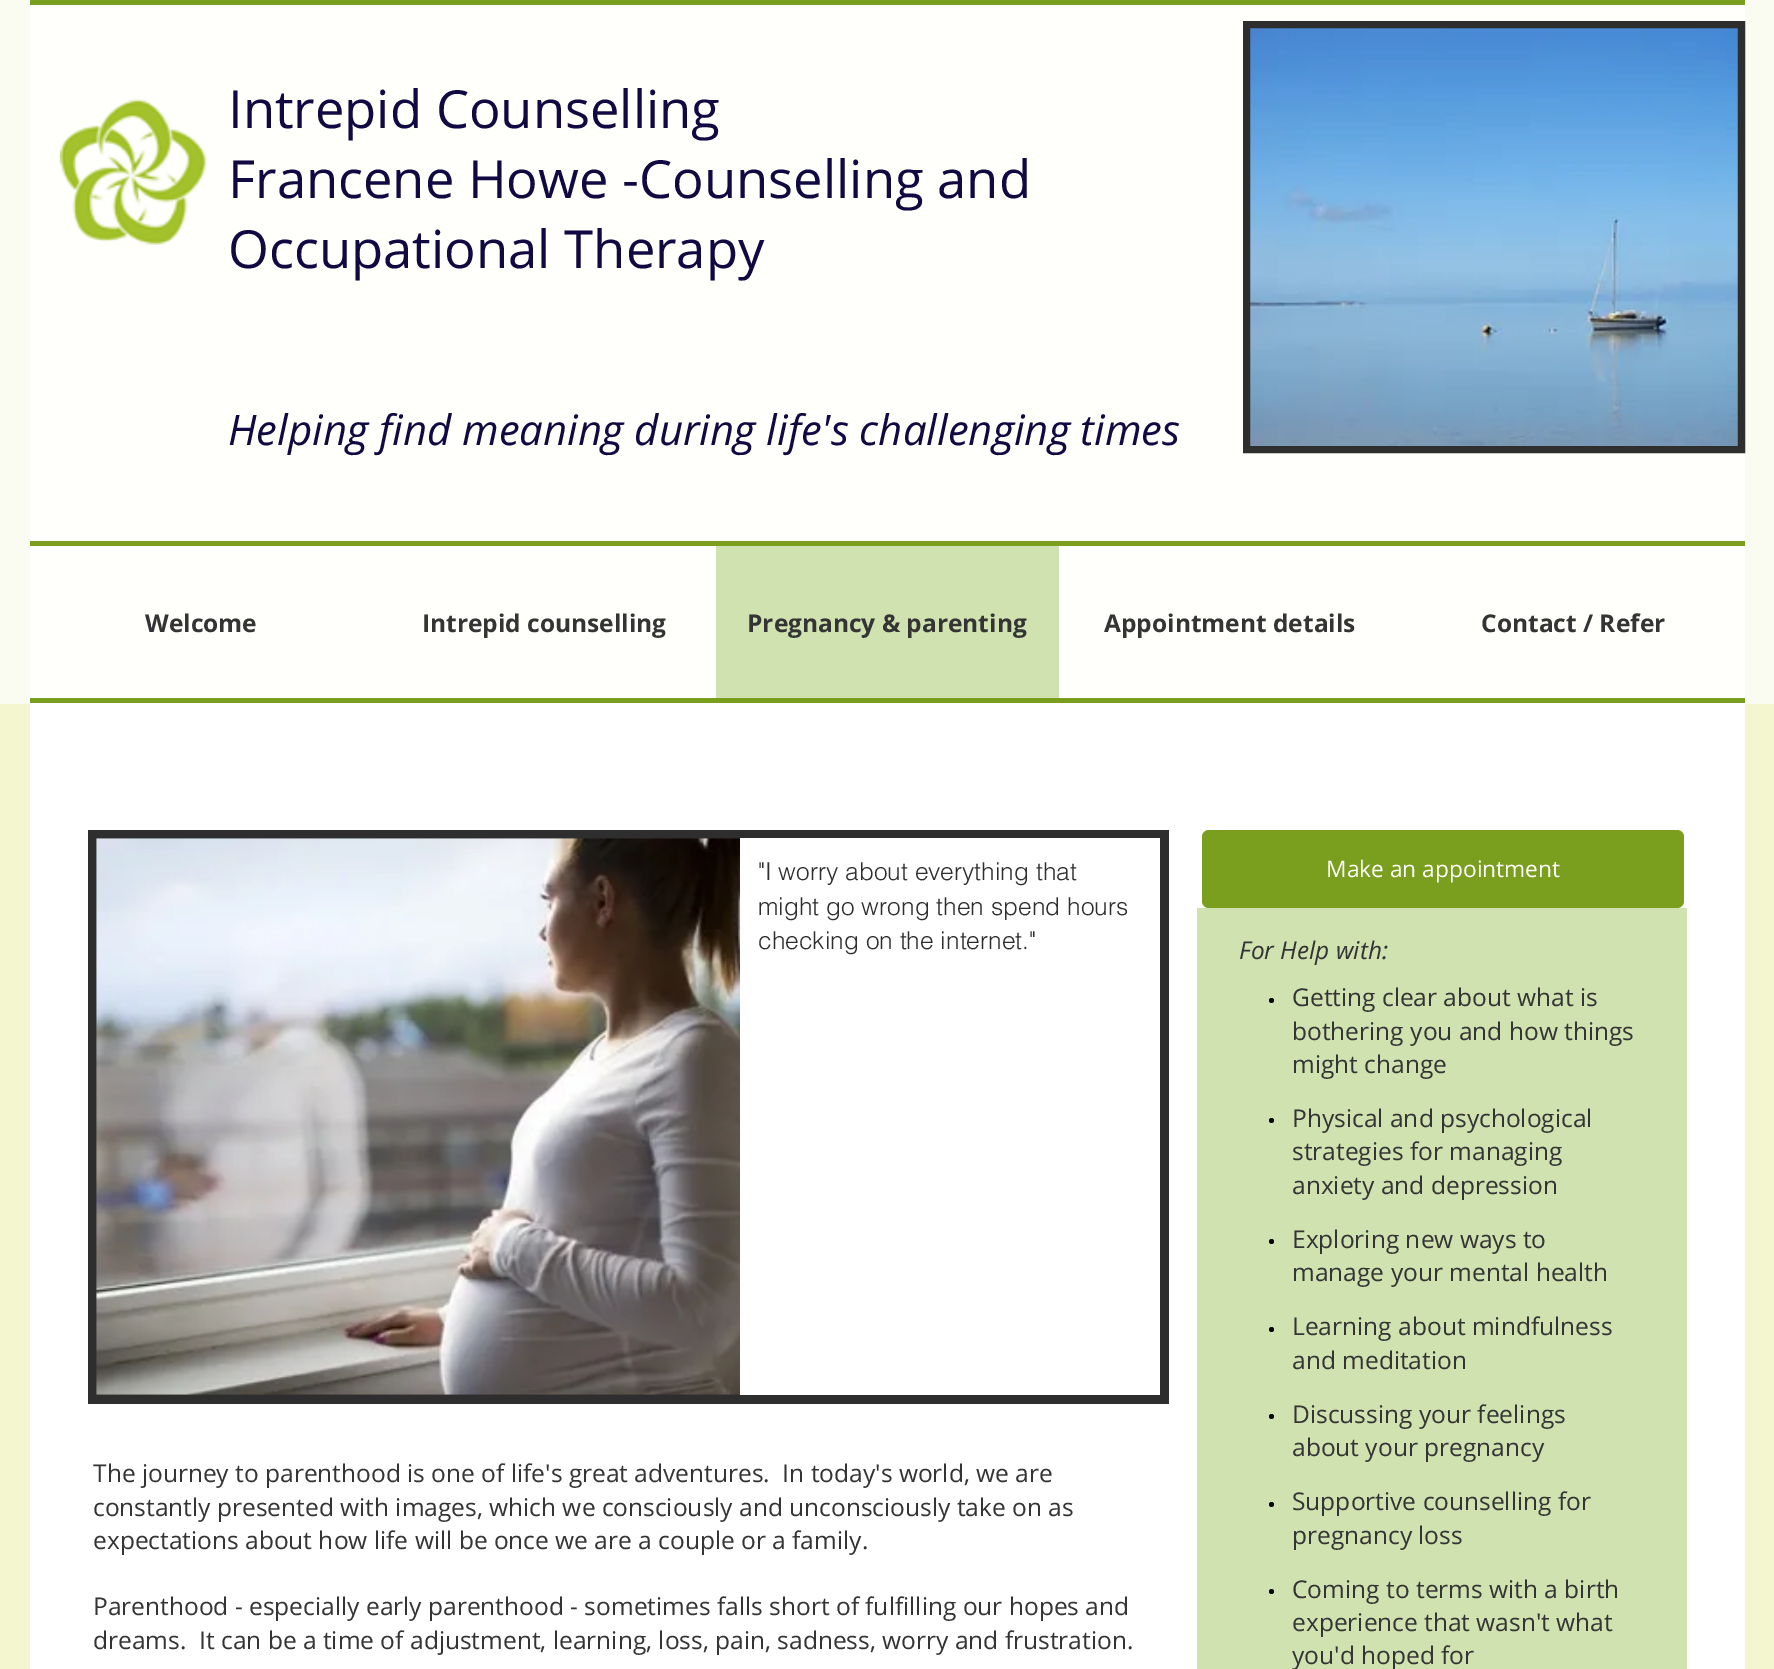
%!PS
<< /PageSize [1774 1669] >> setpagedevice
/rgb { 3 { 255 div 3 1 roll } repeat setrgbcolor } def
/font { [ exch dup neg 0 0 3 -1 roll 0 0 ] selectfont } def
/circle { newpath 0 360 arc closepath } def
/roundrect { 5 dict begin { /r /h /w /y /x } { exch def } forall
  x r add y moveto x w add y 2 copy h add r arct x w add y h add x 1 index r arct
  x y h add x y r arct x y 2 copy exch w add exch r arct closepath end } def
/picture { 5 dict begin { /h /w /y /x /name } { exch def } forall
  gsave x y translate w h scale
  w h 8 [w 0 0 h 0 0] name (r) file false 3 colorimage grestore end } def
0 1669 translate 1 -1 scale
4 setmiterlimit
243 246 207 rgb
0 0 1774 1669 rectfill
[
  [0 0 1774 704 251 252 241]
  [30 5 1715 699 255 255 252]
  [30 0 1715 5 122 158 30]
] { aload pop rgb rectfill } forall
(img/1.rgb) 59 98 148 147 picture
(img/2.rgb) 1250 28 488 418 picture
47 46 46 rgb
7 setlinewidth
1246.5 24.5 495 425 rectstroke
[
  [30 541 1715 5 122 158 30]
  [30 698 1715 5 122 158 30]
  [716 546 343 152 208 226 176]
  [30 704 1715 965 255 255 255]
] { aload pop rgb rectfill } forall
122 158 30 rgb
1202 830 482 78 7 roundrect fill
47 46 46 rgb
88 830 1081 574 rectfill
(img/3.rgb) 96 838 644 557 picture
255 255 255 rgb
740 838 420 557 rectfill
208 226 176 rgb
1197 908 490 761 rectfill
8 8 8 rgb
1271.5 1000.5 2.5 circle fill
1271.5 1120.5 2.5 circle fill
1271.5 1241.5 2.5 circle fill
1271.5 1329.5 2.5 circle fill
1271.5 1416.5 2.5 circle fill
1271.5 1504.5 2.5 circle fill
1271.5 1591.5 2.5 circle fill
/OpenSans-Regular 52.5 font
17 10 66 rgb
[
  [(Intrepid Counselling) 228 128]
  [(Francene Howe -Counselling and) 228 198]
  [(Occupational Therapy) 228 268]
] { aload pop moveto show } forall
/OpenSans-Italic 42 font
228 445 moveto (Helping find meaning during life's challenging times) show
/OpenSans-Bold 24.5 font
52 52 52 rgb
[
  [(Welcome) 145 632]
  [(Intrepid counselling) 422 632]
  [(Pregnancy & parenting) 747 632]
  [(Appointment details) 1104 632]
  [(Contact / Refer) 1481 632]
] { aload pop moveto show } forall
/OpenSans-Regular 22.75 font
255 255 255 rgb
1326 877 moveto (Make an appointment) show
/helvetica-Light 24.5 font
47 46 46 rgb
[
  [("I worry about everything that) 758 880]
  [(might go wrong then spend hours) 758 915]
  [(checking on the internet.") 758 949]
] { aload pop moveto show } forall
/OpenSans-Regular 24.5 font
52 52 52 rgb
[
  [(The journey to parenthood is one of life's great adventures.  In today's world, we are) 93 1482]
  [(constantly presented with images, which we consciously and unconsciously take on as) 93 1516]
  [(expectations about how life will be once we are a couple or a family.) 93 1549]
  [(Parenthood - especially early parenthood - sometimes falls short of fulfilling our hopes and) 93 1615]
  [(dreams.  It can be a time of adjustment, learning, loss, pain, sadness, worry and frustration.) 93 1649]
] { aload pop moveto show } forall
/OpenSans-Italic 24.5 font
1239 959 moveto (For Help with:) show
/OpenSans-Regular 24.5 font
[
  [(Getting clear about what is) 1292 1006]
  [(bothering you and how things) 1292 1040]
  [(might change) 1292 1073]
  [(Physical and psychological) 1292 1127]
  [(strategies for managing) 1292 1160]
  [(anxiety and depression) 1292 1194]
  [(Exploring new ways to) 1292 1248]
  [(manage your mental health) 1292 1281]
  [(Learning about mindfulness) 1292 1335]
  [(and meditation) 1292 1369]
  [(Discussing your feelings) 1292 1423]
  [(about your pregnancy) 1292 1456]
  [(Supportive counselling for) 1292 1510]
  [(pregnancy loss) 1292 1544]
  [(Coming to terms with a birth) 1292 1598]
  [(experience that wasn't what) 1292 1631]
  [(you'd hoped for) 1292 1664]
] { aload pop moveto show } forall
showpage
